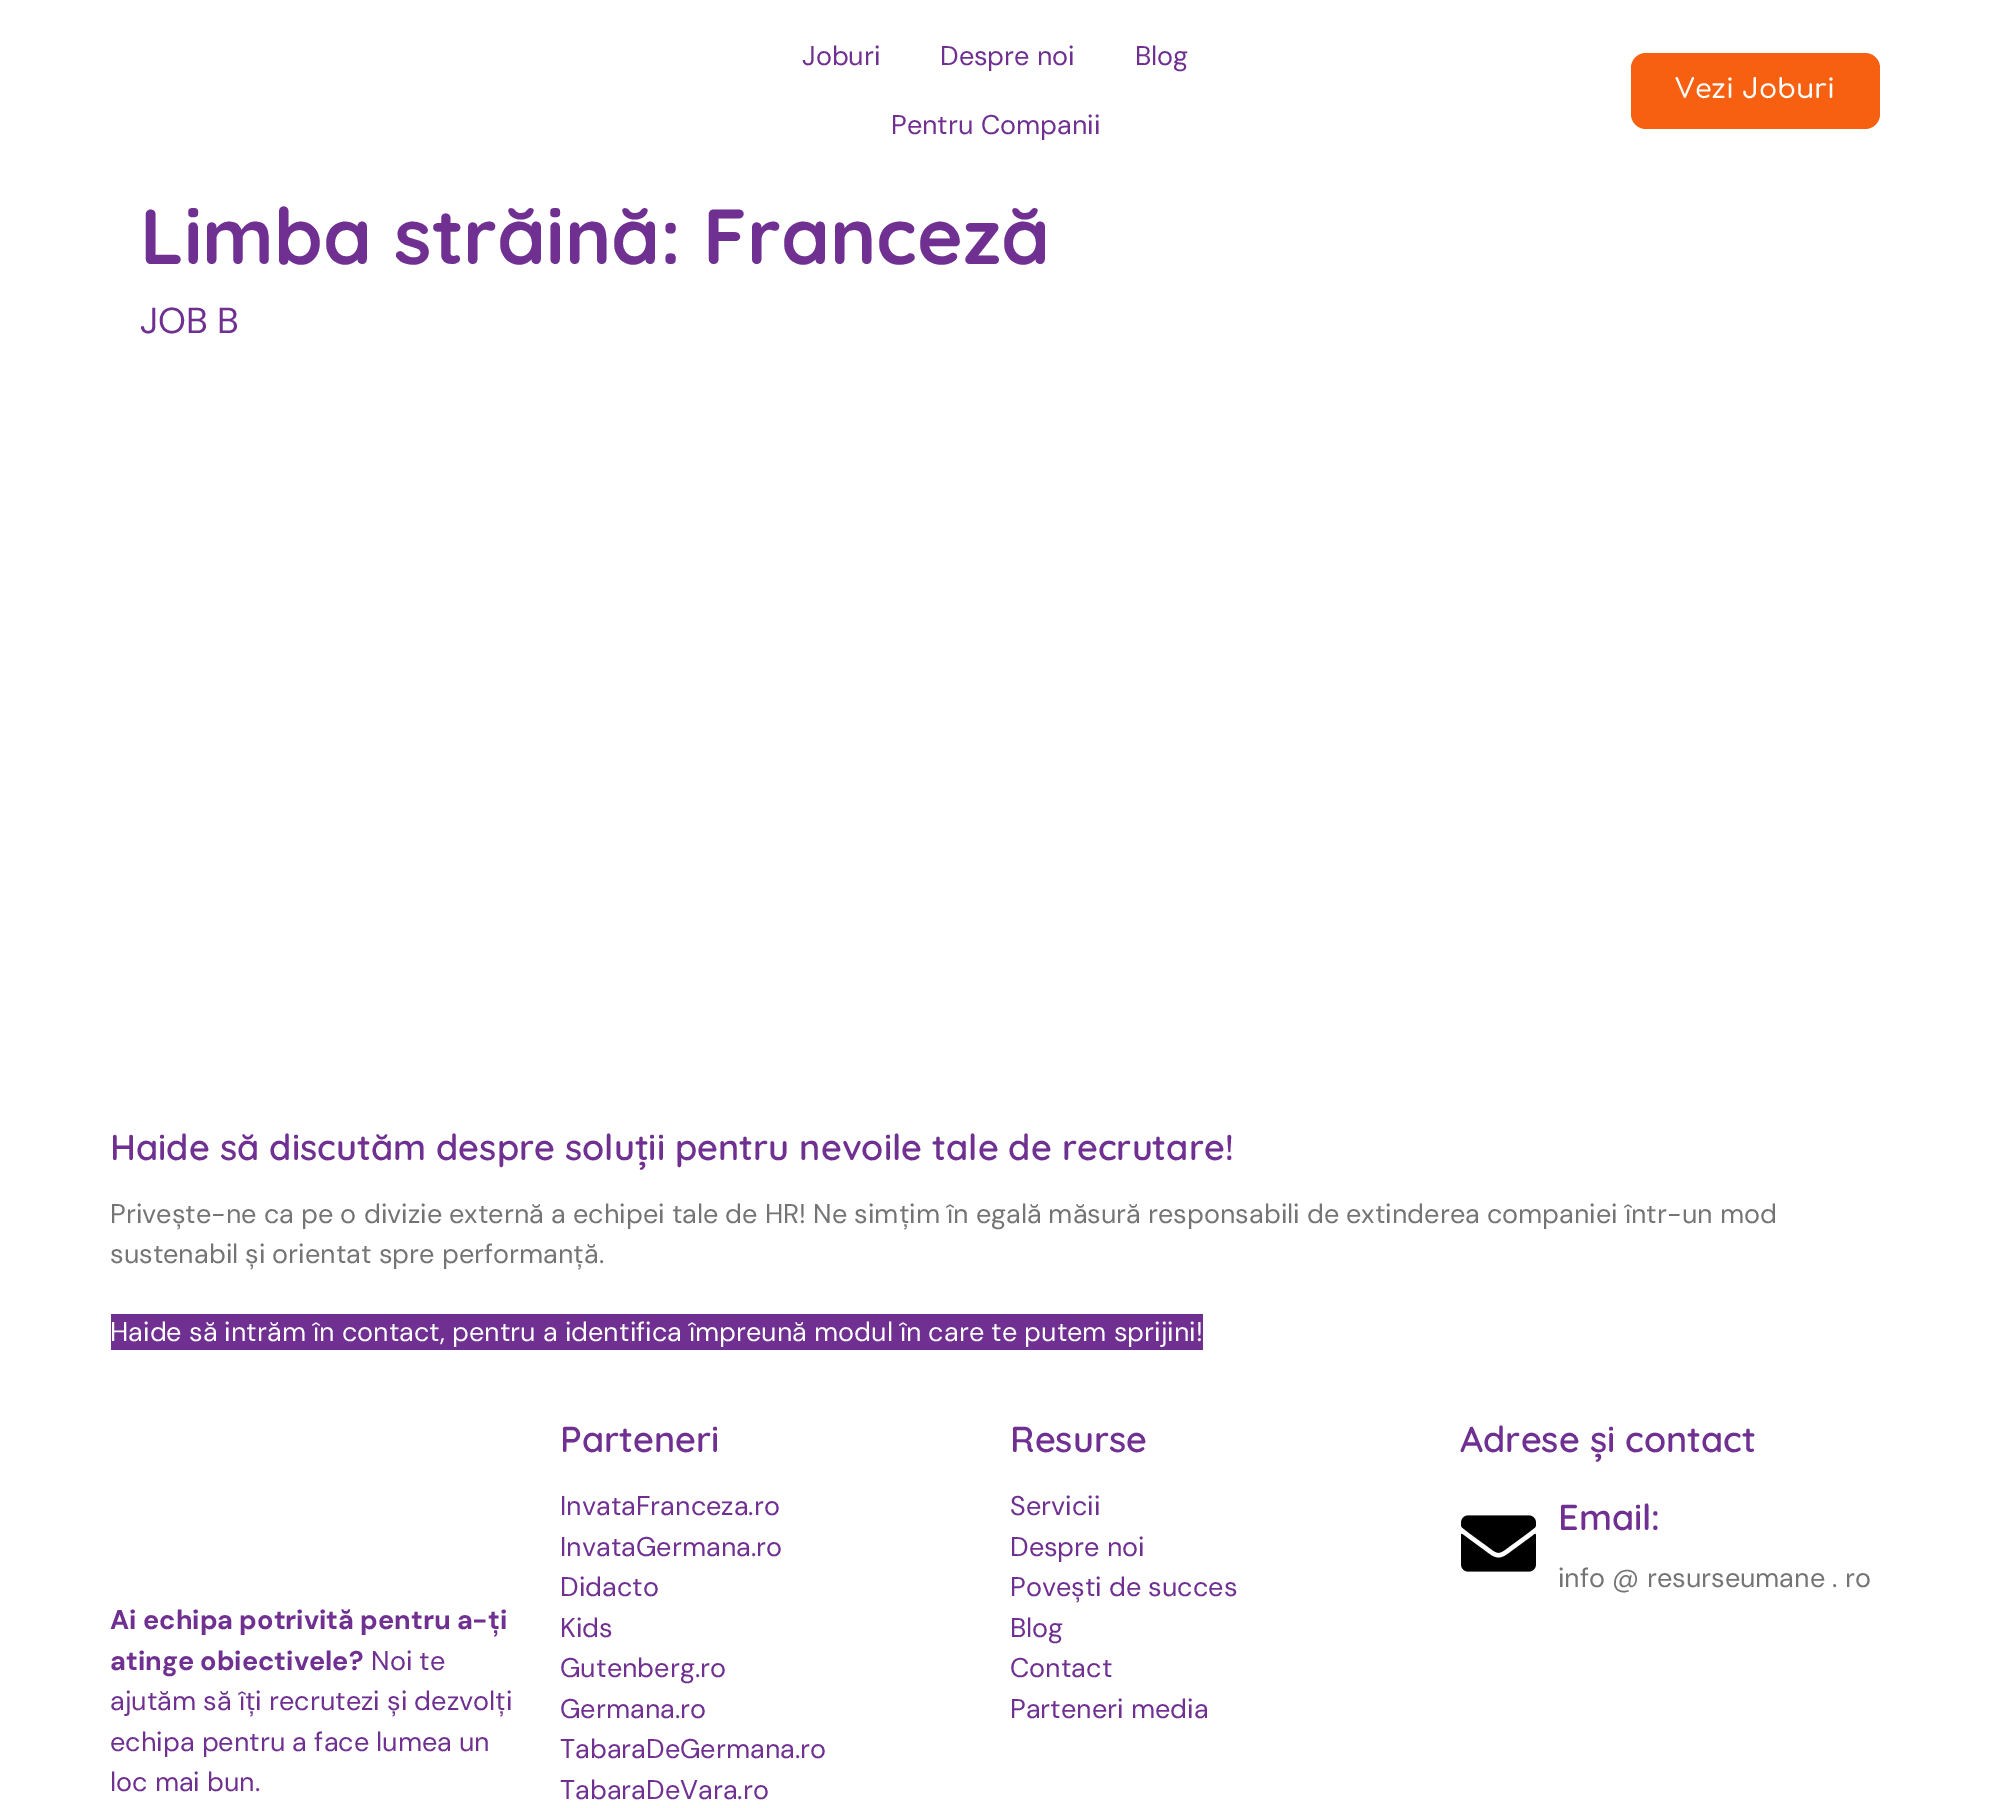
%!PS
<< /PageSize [1990 1808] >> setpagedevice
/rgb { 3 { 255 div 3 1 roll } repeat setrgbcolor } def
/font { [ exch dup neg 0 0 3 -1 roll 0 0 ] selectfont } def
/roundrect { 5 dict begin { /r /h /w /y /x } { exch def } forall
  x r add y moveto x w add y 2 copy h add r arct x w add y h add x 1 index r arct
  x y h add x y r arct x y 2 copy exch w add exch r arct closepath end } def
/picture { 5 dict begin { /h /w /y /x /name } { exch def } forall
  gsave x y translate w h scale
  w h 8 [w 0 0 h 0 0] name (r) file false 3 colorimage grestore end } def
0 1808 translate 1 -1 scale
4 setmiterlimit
255 255 255 rgb
0 0 1990 1808 rectfill
248 96 17 rgb
1631 53 249 76 15 roundrect fill
112 48 145 rgb
111 1314 1092 36 rectfill
(img/1.rgb) 1461 1515 75 57 picture
/DMSans-Regular 27 font
[
  [(Joburi) 802 65]
  [(Despre noi) 940 65]
  [(Blog) 1135 65]
  [(Pentru Companii) 891 134]
] { aload pop moveto show } forall
/Comfortaa-SemiBold 27 font
255 255 255 rgb
1675 98 moveto (Vezi Joburi) show
/Quicksand-Bold 78 font
112 48 145 rgb
140 264 moveto (Limba străină: Franceză) show
/DMSans-Regular 36 font
140 333 moveto (JOB B) show
/Quicksand-SemiBold 36 font
110 1160 moveto (Haide să discutăm despre soluții pentru nevoile tale de recrutare!) show
/DMSans-Regular 27 font
116 116 116 rgb
110 1223 moveto (Privește-ne ca pe o divizie externă a echipei tale de HR! Ne simțim în egală măsură responsabili de extinderea companiei într-un mod) show
110 1263 moveto (sustenabil și orientat spre performanță.) show
255 255 255 rgb
110 1341 moveto (Haide să intrăm în contact, pentru a identifica împreună modul în care te putem sprijini!) show
/DMSans-Bold 27 font
112 48 145 rgb
110 1629 moveto (Ai echipa potrivită pentru a-ți) show
110 1670 moveto (atinge obiectivele?) show
/DMSans-Regular 27 font
[
  [(Noi te) 371 1670]
  [(ajutăm să îți recrutezi și dezvolți) 110 1710]
  [(echipa pentru a face lumea un) 110 1751]
  [(loc mai bun.) 110 1791]
] { aload pop moveto show } forall
/Quicksand-SemiBold 36 font
560 1452 moveto (Parteneri) show
/DMSans-Regular 27 font
[
  [(InvataFranceza.ro) 560 1515]
  [(InvataGermana.ro) 560 1556]
  [(Didacto) 560 1596]
  [(Kids) 560 1637]
  [(Gutenberg.ro) 560 1677]
  [(Germana.ro) 560 1718]
  [(TabaraDeGermana.ro) 560 1758]
  [(TabaraDeVara.ro) 560 1799]
] { aload pop moveto show } forall
/Quicksand-SemiBold 36 font
1010 1452 moveto (Resurse) show
/DMSans-Regular 27 font
[
  [(Servicii) 1010 1515]
  [(Despre noi) 1010 1556]
  [(Povești de succes) 1010 1596]
  [(Blog) 1010 1637]
  [(Contact) 1010 1677]
  [(Parteneri media) 1010 1718]
] { aload pop moveto show } forall
/Quicksand-SemiBold 36 font
1460 1452 moveto (Adrese și contact) show
1558 1530 moveto (Email:) show
/DMSans-Regular 27 font
116 116 116 rgb
1558 1587 moveto (info @ resurseumane . ro) show
showpage
